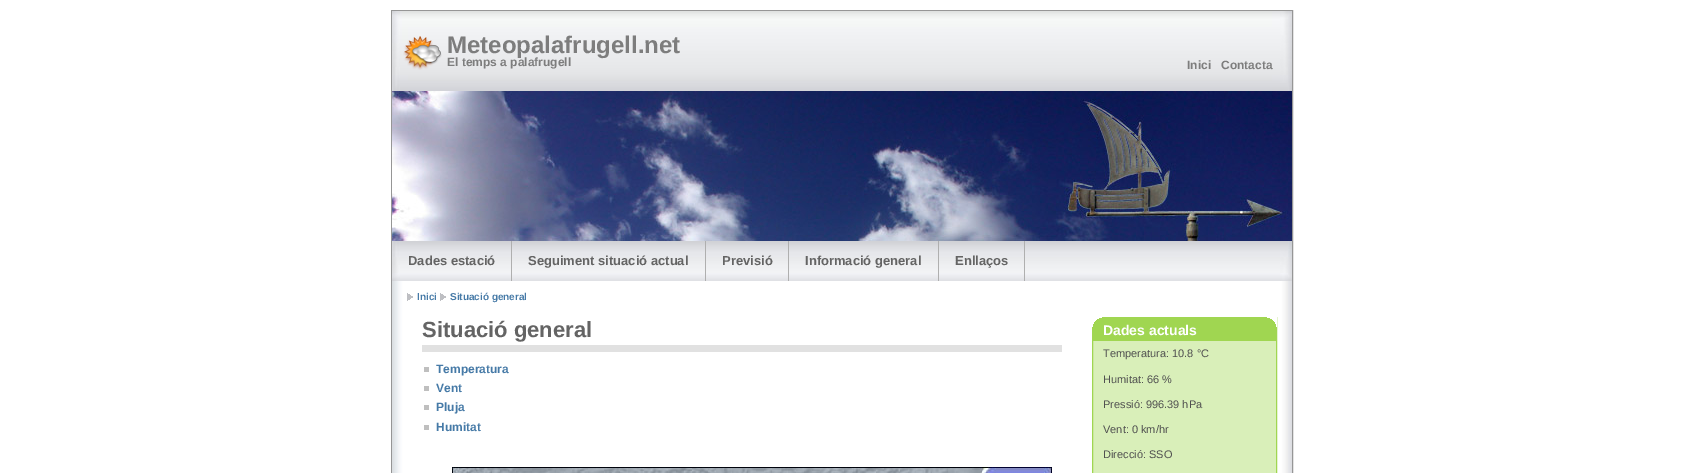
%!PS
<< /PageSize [1684 473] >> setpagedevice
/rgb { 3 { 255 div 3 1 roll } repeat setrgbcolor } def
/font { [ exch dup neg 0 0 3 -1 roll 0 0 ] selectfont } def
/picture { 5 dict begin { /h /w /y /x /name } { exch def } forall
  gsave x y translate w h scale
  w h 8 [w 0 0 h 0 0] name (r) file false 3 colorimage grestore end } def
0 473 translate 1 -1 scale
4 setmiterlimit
255 255 255 rgb
0 0 1684 473 rectfill
150 150 150 rgb
391.5 10.5 901 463 rectstroke
(img/1.rgb) 392 11 900 80 picture
(img/2.rgb) 403 36 39 34 picture
(img/3.rgb) 392 91 900 150 picture
(img/4.rgb) 392 241 900 40 picture
[
  [511 241 1 40 175 175 175]
  [705 241 1 40 175 175 175]
  [788 241 1 40 175 175 175]
  [938 241 1 40 175 175 175]
  [1024 241 1 40 175 175 175]
] { aload pop rgb rectfill } forall
(img/5.rgb) 392 281 900 36 picture
(img/6.rgb) 407 293 6 8 picture
(img/6.rgb) 440 293 6 8 picture
(img/7.rgb) 392 317 900 156 picture
[
  [422 345 640 7 225 225 225]
  [424 367 5 5 191 191 191]
  [424 386 5 5 191 191 191]
  [424 405 5 5 191 191 191]
  [424 425 5 5 191 191 191]
] { aload pop rgb rectfill } forall
(img/8.rgb) 452 467 600 6 picture
217 239 185 rgb
1093 341 183 132 rectfill
160 214 81 rgb
1092.5 317.5 184 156 rectstroke
1093 318 183 23 rectfill
(img/9.rgb) 1092 317 10 10 picture
(img/10.rgb) 1267 317 10 10 picture
/LiberationSans-Bold 24 font
125 125 125 rgb
447 53 moveto (Meteopalafrugell.net) show
/LiberationSans-Bold 12 font
[
  [(El temps a palafrugell) 447 66]
  [(Inici) 1187 69]
  [(Contacta) 1221 69]
] { aload pop moveto show } forall
/LiberationSans-Bold 13 font
100 100 100 rgb
[
  [(Dades estació) 408 265]
  [(Seguiment situació actual) 528 265]
  [(Previsió) 722 265]
  [(Informació general) 805 265]
  [(Enllaços) 955 265]
] { aload pop moveto show } forall
/LiberationSans-Bold 10 font
70 122 167 rgb
417 300 moveto (Inici) show
450 300 moveto (Situació general) show
/LiberationSans-Bold 22 font
100 100 100 rgb
422 337 moveto (Situació general) show
/LiberationSans-Bold 12 font
70 122 167 rgb
[
  [(Temperatura) 436 373]
  [(Vent) 436 392]
  [(Pluja) 436 411]
  [(Humitat) 436 431]
] { aload pop moveto show } forall
/LiberationSans-Bold 14 font
255 255 255 rgb
1103 335 moveto (Dades actuals) show
/LiberationSans-Regular 11 font
80 80 80 rgb
[
  [(Temperatura: 10.8 °C) 1103 357]
  [(Humitat: 66 %) 1103 383]
  [(Pressió: 996.39 hPa) 1103 408]
  [(Vent: 0 km/hr) 1103 433]
  [(Direcció: SSO) 1103 458]
] { aload pop moveto show } forall
showpage
